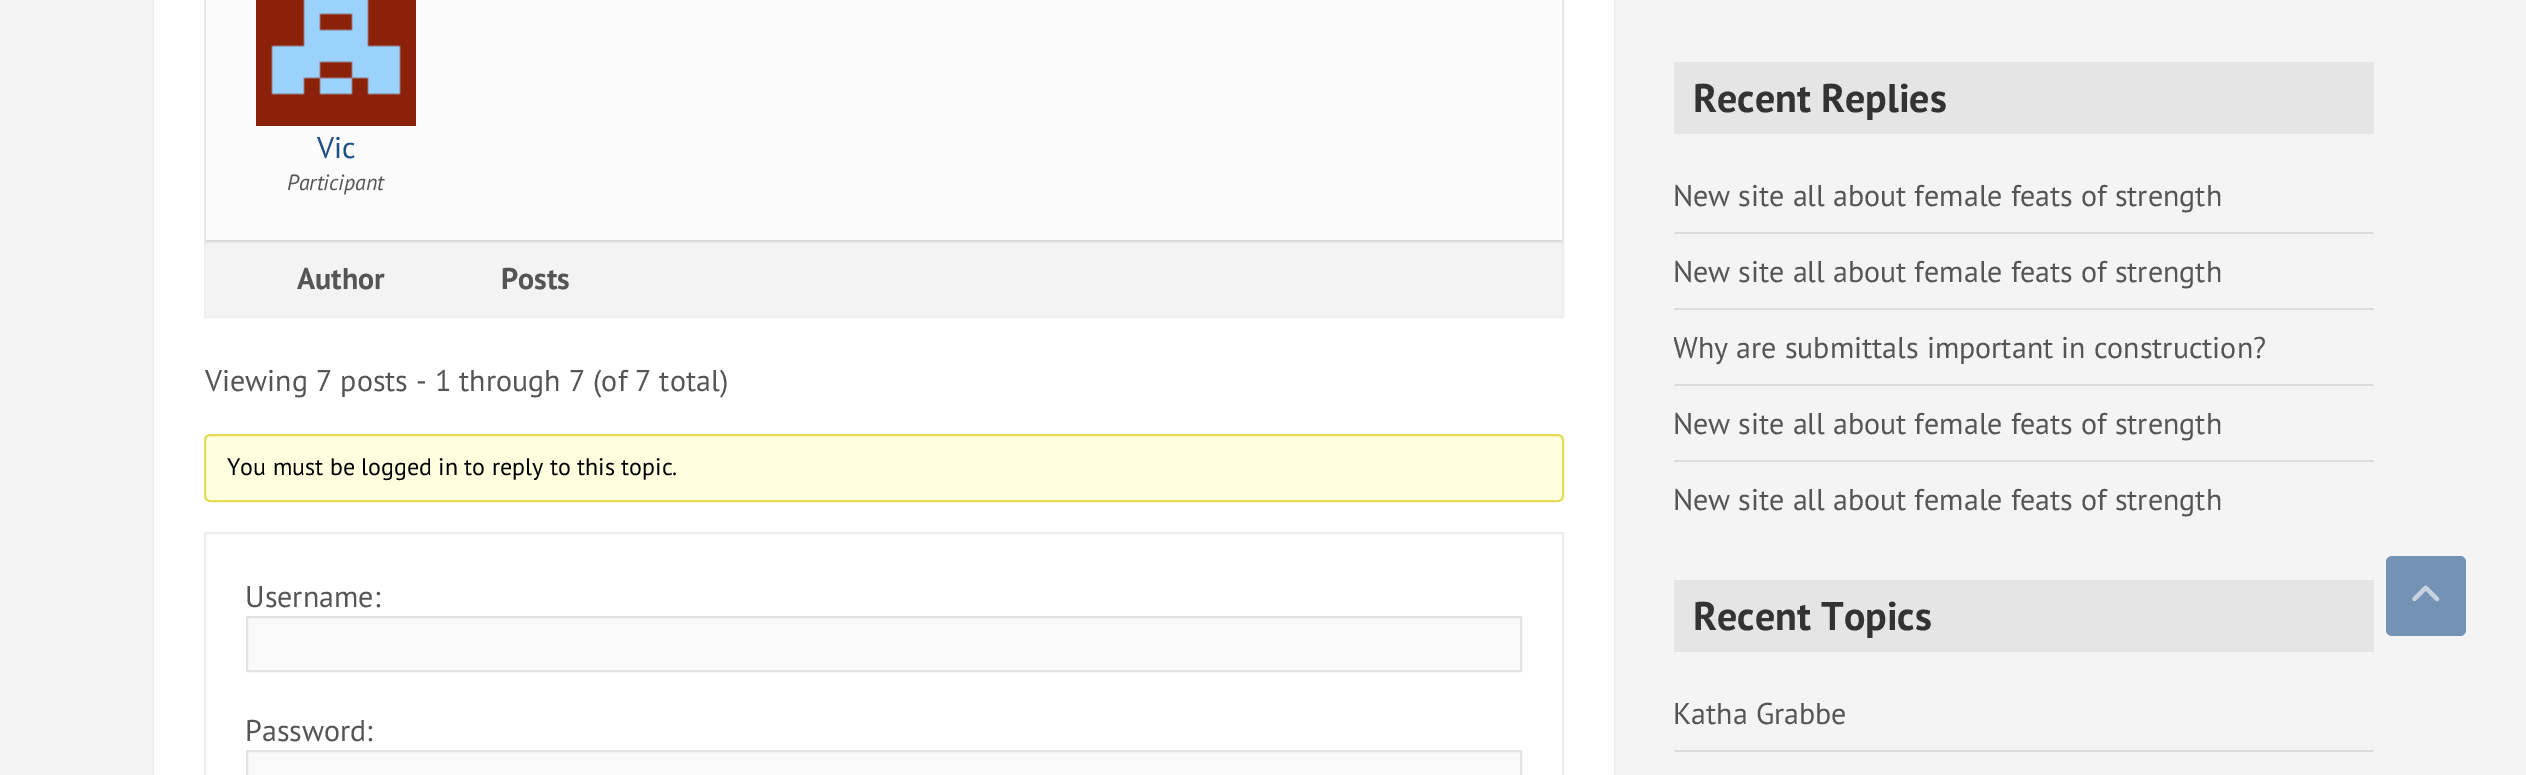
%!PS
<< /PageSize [2526 775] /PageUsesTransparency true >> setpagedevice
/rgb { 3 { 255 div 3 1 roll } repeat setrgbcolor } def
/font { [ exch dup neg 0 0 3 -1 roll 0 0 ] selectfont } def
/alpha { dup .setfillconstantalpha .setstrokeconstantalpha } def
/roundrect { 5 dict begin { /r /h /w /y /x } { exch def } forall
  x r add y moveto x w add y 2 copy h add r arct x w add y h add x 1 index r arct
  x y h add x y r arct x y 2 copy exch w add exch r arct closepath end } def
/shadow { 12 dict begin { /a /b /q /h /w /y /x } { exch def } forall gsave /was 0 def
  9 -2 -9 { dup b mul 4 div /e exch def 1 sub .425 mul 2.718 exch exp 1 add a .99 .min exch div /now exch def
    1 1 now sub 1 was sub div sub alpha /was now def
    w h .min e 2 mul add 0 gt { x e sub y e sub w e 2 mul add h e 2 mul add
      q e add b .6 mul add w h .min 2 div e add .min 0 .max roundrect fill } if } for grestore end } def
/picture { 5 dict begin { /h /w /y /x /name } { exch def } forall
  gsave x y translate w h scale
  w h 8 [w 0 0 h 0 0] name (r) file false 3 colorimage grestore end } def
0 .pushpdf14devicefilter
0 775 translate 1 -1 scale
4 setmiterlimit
244 244 244 rgb
0 0 2526 775 rectfill
0 0 0 rgb
154 -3 1460 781 0 1 0.1 shadow
255 255 255 rgb
154 0 1460 775 rectfill
238 238 238 rgb
2 setlinewidth
205 -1 1358 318 rectstroke
243 243 243 rgb
206 242 1356 74 rectfill
238 238 238 rgb
206 240 1356 2 rectfill
0 0 0 rgb
206 -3 1356 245 0 1 0.1 shadow
251 251 251 rgb
206 0 1356 240 rectfill
(img/1.rgb) 256 0 160 126 picture
255 255 224 rgb
205 435 1358 66 5 roundrect gsave fill grestore
230 219 85 rgb
stroke
238 238 238 rgb
205 533 1358 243 rectstroke
249 249 249 rgb
247 617 moveto 1521 617 lineto 1521 671 lineto 247 671 lineto closepath gsave fill grestore
227 227 227 rgb
stroke
249 249 249 rgb
247 751 moveto 1521 751 lineto 1521 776 lineto 247 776 lineto closepath gsave fill grestore
227 227 227 rgb
stroke
[
  [1674 62 700 72 229 229 229]
  [1674 232 700 2 220 220 220]
  [1674 308 700 2 220 220 220]
  [1674 384 700 2 220 220 220]
  [1674 460 700 2 220 220 220]
  [1674 580 700 72 229 229 229]
  [1674 750 700 2 220 220 220]
] { aload pop rgb rectfill } forall
116 146 179 rgb
2386 556 80 80 6 roundrect fill
(img/2.rgb) 2412 585 28 17 picture
/PTSans-Regular 30 font
30 80 135 rgb
317 158 moveto (Vic) show
/PTSans-Italic 22 font
85 85 85 rgb
287 190 moveto (Participant) show
/PTSans-Bold 30 font
297 289 moveto (Author) show
501 289 moveto (Posts) show
/PTSans-Regular 30 font
205 391 moveto (Viewing 7 posts - 1 through 7 \(of 7 total\)) show
/PTSans-Regular 24 font
0 0 0 rgb
227 475 moveto (You must be logged in to reply to this topic.) show
/PTSans-Regular 30 font
85 85 85 rgb
245 607 moveto (Username:) show
245 741 moveto (Password:) show
/PTSans-Bold 40 font
51 51 51 rgb
1693 112 moveto (Recent Replies) show
/PTSans-Regular 30 font
85 85 85 rgb
1673 206 moveto (New site all about female feats of strength) show
1673 282 moveto (New site all about female feats of strength) show
gsave
1674 174 700 346 rectclip
1673 358 moveto (Why are submittals important in construction?) show
grestore
1673 434 moveto (New site all about female feats of strength) show
1673 510 moveto (New site all about female feats of strength) show
/PTSans-Bold 40 font
51 51 51 rgb
1693 630 moveto (Recent Topics) show
/PTSans-Regular 30 font
85 85 85 rgb
1673 724 moveto (Katha Grabbe) show
.poppdf14devicefilter showpage
